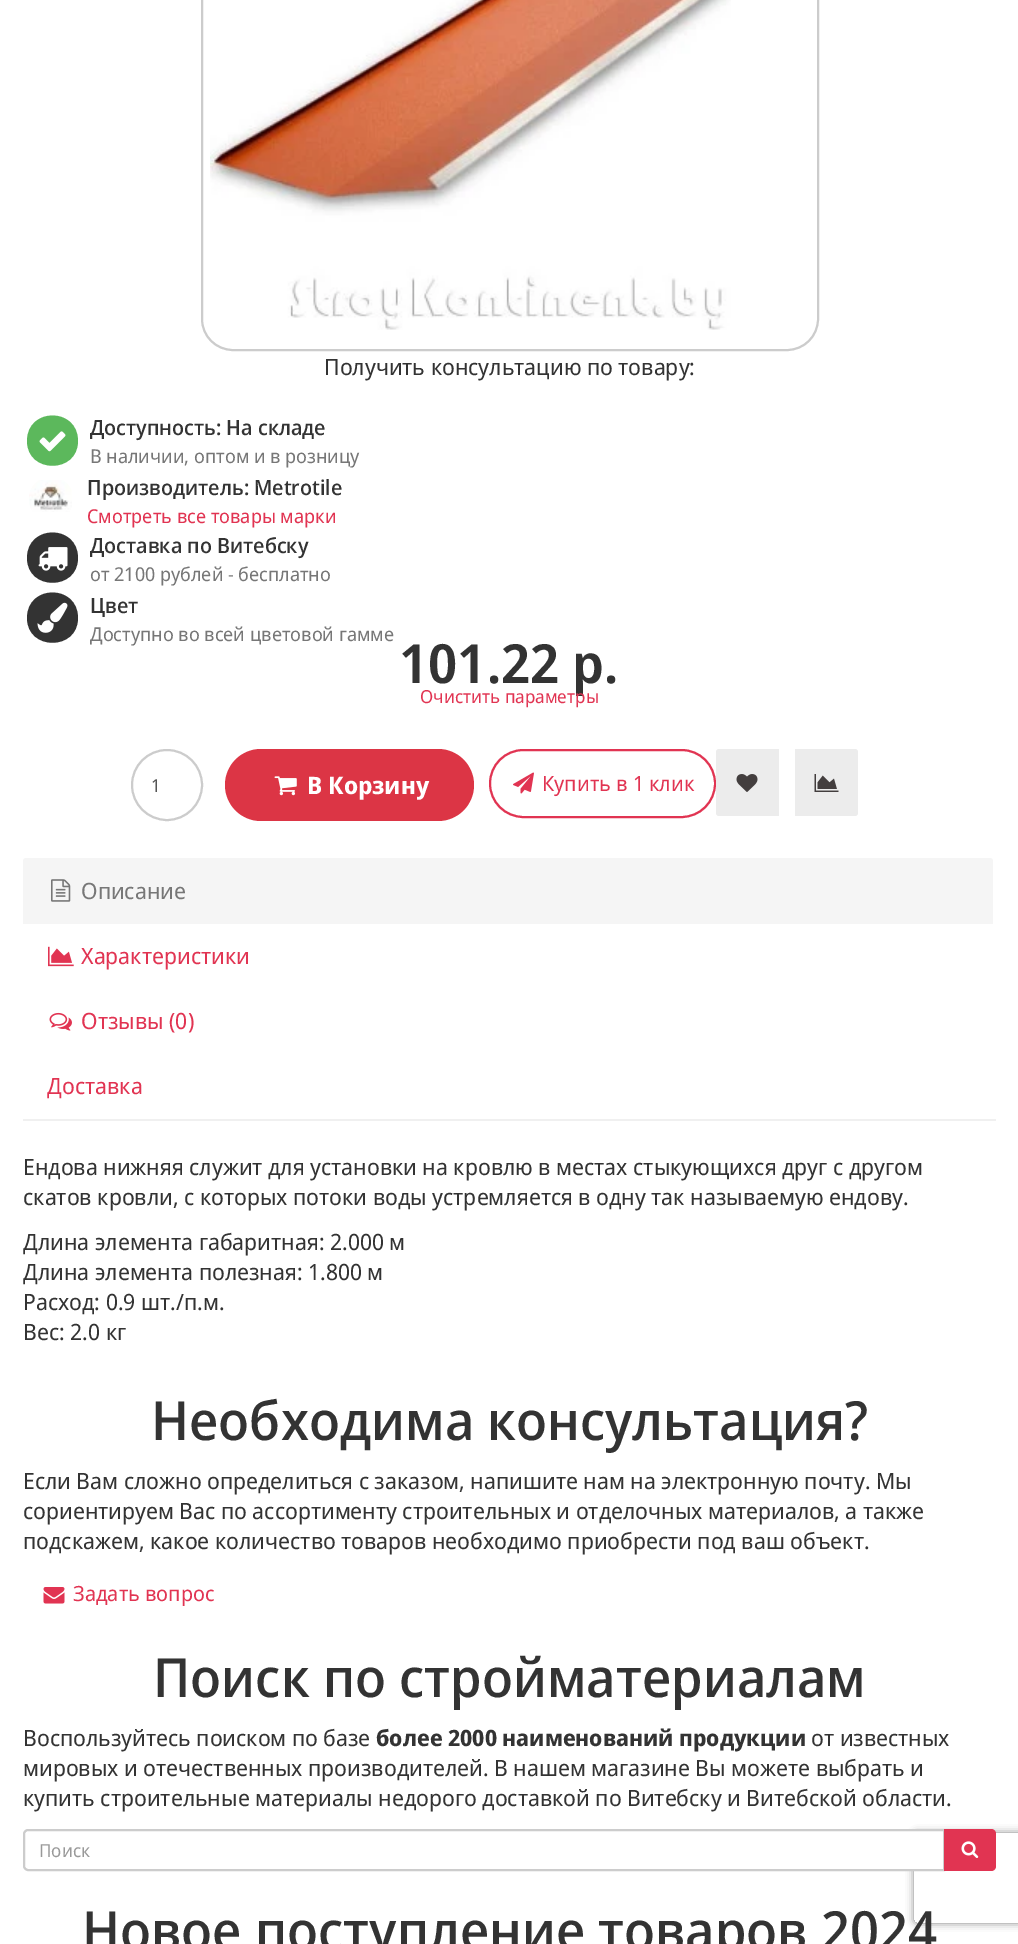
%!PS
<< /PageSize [1018 1944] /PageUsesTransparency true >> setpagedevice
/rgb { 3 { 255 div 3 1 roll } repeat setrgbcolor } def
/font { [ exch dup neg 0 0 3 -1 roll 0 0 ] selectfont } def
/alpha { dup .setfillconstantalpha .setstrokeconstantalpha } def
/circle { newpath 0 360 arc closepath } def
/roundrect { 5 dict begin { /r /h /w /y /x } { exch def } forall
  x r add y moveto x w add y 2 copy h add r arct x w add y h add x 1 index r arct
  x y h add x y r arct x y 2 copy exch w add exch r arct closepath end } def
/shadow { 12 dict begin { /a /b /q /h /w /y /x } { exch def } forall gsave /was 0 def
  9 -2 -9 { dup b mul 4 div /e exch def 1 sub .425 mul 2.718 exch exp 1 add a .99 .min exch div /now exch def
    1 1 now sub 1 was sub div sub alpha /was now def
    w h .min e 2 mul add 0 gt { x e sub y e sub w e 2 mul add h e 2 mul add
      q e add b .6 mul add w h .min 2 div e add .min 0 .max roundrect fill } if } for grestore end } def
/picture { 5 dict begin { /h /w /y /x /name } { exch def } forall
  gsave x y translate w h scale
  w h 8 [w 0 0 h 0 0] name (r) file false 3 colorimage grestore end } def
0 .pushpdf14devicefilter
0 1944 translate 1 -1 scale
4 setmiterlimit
255 255 255 rgb
0 0 1018 1944 rectfill
204 204 204 rgb
2 setlinewidth
202 -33 616 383 31 roundrect stroke
(img/1.rgb) 210 0 521 330 picture
92 184 92 rgb
78 441 moveto 78 407 27 407 27 441 curveto 27 474 78 474 78 441 curveto closepath fill
(img/2.rgb) 39 431 27 21 picture
(img/3.rgb) 29 480 43 32 picture
51 51 51 rgb
78 558 moveto 78 524 27 524 27 558 curveto 27 591 78 591 78 558 curveto closepath fill
(img/4.rgb) 38 547 30 24 picture
78 618 moveto 78 584 27 584 27 618 curveto 27 651 78 651 78 618 curveto closepath fill
(img/5.rgb) 37 602 31 31 picture
204 204 204 rgb
167 785 35 circle stroke
220 53 69 rgb
225 749 249 72 36 roundrect fill
(img/6.rgb) 274 776 23 20 picture
225 52 82 rgb
490 750 225 67 33.5 roundrect stroke
(img/7.rgb) 513 772 21 22 picture
236 236 236 rgb
719 749 moveto 779 749 lineto 779 816 lineto 719 816 lineto 717.5 816 716 814.5 716 813 curveto 716 752 lineto 716 750.5 717.5 749 719 749 curveto closepath fill
(img/8.rgb) 736 774 22 18 picture
795 749 moveto 855 749 lineto 856.5 749 858 750.5 858 752 curveto 858 813 lineto 858 814.5 856.5 816 855 816 curveto 795 816 lineto closepath fill
(img/9.rgb) 814 774 25 18 picture
240 240 240 rgb
23 1119 973 2 rectfill
245 245 245 rgb
26 858 moveto 990 858 lineto 991.5 858 993 859.5 993 861 curveto 993 924 lineto 23 924 lineto 23 861 lineto 23 859.5 24.5 858 26 858 curveto closepath fill
(img/10.rgb) 51 879 20 23 picture
(img/11.rgb) 48 946 26 21 picture
(img/12.rgb) 49 1012 23 19 picture
(img/13.rgb) 43 1587 22 17 picture
gsave
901 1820 moveto 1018 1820 lineto 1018 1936 lineto 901 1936 lineto closepath 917 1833 moveto 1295 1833 lineto 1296.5 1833 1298 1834.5 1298 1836 curveto 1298 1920 lineto 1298 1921.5 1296.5 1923 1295 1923 curveto 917 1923 lineto 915.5 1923 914 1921.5 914 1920 curveto 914 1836 lineto 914 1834.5 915.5 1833 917 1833 curveto closepath eoclip newpath
128 128 128 rgb
914 1833 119 90 3 4 1 shadow
grestore
255 255 255 rgb
28 1830 moveto 944 1830 lineto 944 1870 lineto 28 1870 lineto 26 1870 24 1868 24 1866 curveto 24 1834 lineto 24 1832 26 1830 28 1830 curveto closepath gsave fill grestore
204 204 204 rgb
stroke
225 52 82 rgb
944 1829 moveto 991 1829 lineto 994 1829 996 1831 996 1834 curveto 996 1866 lineto 996 1869 994 1871 991 1871 curveto 944 1871 lineto closepath fill
(img/14.rgb) 961 1841 18 17 picture
/NotoSansDisplay-Regular 22.5 font
51 51 51 rgb
324 375 moveto (Получить консультацию по товару:) show
/NotoSansDisplay-Medium 21 font
90 435 moveto (Доступность: На складе) show
/NotoSansDisplay-Regular 19.1 font
119 119 119 rgb
90 463 moveto (В наличии, оптом и в розницу) show
/NotoSansDisplay-Medium 21 font
51 51 51 rgb
87 495 moveto (Производитель: Мetrotile) show
/NotoSansDisplay-Regular 19.1 font
225 52 82 rgb
87 523 moveto (Смотреть все товары марки) show
/NotoSansDisplay-Medium 21 font
51 51 51 rgb
90 553 moveto (Доставка по Витебску) show
/NotoSansDisplay-Regular 19.1 font
119 119 119 rgb
90 581 moveto (от 2100 рублей - бесплатно) show
/NotoSansDisplay-Medium 21 font
51 51 51 rgb
90 613 moveto (Цвет) show
/NotoSansDisplay-Regular 19.1 font
119 119 119 rgb
90 641 moveto (Доступно во всей цветовой гамме) show
/NotoSansDisplay-SemiBold 54 font
51 51 51 rgb
399 683 moveto (101.22 р.) show
/NotoSansDisplay-Regular 18 font
225 52 82 rgb
420 703 moveto (Очистить параметры) show
85 85 85 rgb
151 792 moveto (1) show
/NotoSansDisplay-Bold 24 font
255 255 255 rgb
307 794 moveto (В Корзину) show
/NotoSansDisplay-Regular 21 font
225 52 82 rgb
542 791 moveto (Купить в 1 клик) show
/NotoSansDisplay-Regular 22.5 font
119 119 119 rgb
81 899 moveto (Описание) show
225 52 82 rgb
[
  [(Характеристики) 81 964]
  [(Отзывы \(0\)) 81 1029]
  [(Доставка) 47 1094]
] { aload pop moveto show } forall
51 51 51 rgb
[
  [(Ендова нижняя служит для установки на кровлю в местах стыкующихся друг с другом) 23 1175]
  [(скатов кровли, с которых потоки воды устремляется в одну так называемую ендову.) 23 1205]
  [(Длина элемента габаритная: 2.000 м) 23 1250]
  [(Длина элемента полезная: 1.800 м) 23 1280]
  [(Расход: 0.9 шт./п.м.) 23 1310]
  [(Вес: 2.0 кг) 23 1340]
] { aload pop moveto show } forall
/NotoSansDisplay-Medium 54 font
151 1440 moveto (Необходима консультация?) show
/NotoSansDisplay-Regular 22.5 font
[
  [(Если Вам сложно определиться с заказом, напишите нам на электронную почту. Мы) 23 1489]
  [(сориентируем Вас по ассортименту строительных и отделочных материалов, а также) 23 1519]
  [(подскажем, какое количество товаров необходимо приобрести под ваш объект.) 23 1549]
] { aload pop moveto show } forall
/NotoSansDisplay-Regular 21 font
225 52 82 rgb
73 1601 moveto (Задать вопрос) show
/NotoSansDisplay-Medium 54 font
51 51 51 rgb
153 1697 moveto (Поиск по стройматериалам) show
/NotoSansDisplay-Regular 22.5 font
23 1746 moveto (Воспользуйтесь поиском по базе) show
/NotoSansDisplay-Bold 22.5 font
376 1746 moveto (более 2000 наименований продукции) show
/NotoSansDisplay-Regular 22.5 font
[
  [(от известных) 811 1746]
  [(мировых и отечественных производителей. В нашем магазине Вы можете выбрать и) 23 1776]
  [(купить строительные материалы недорого доставкой по Витебску и Витебской области.) 23 1806]
] { aload pop moveto show } forall
/NotoSansDisplay-Regular 18 font
153 153 153 rgb
39 1857 moveto (Поиск) show
/NotoSansDisplay-Medium 54 font
51 51 51 rgb
82 1950 moveto (Новое поступление товаров 2024) show
.poppdf14devicefilter showpage
